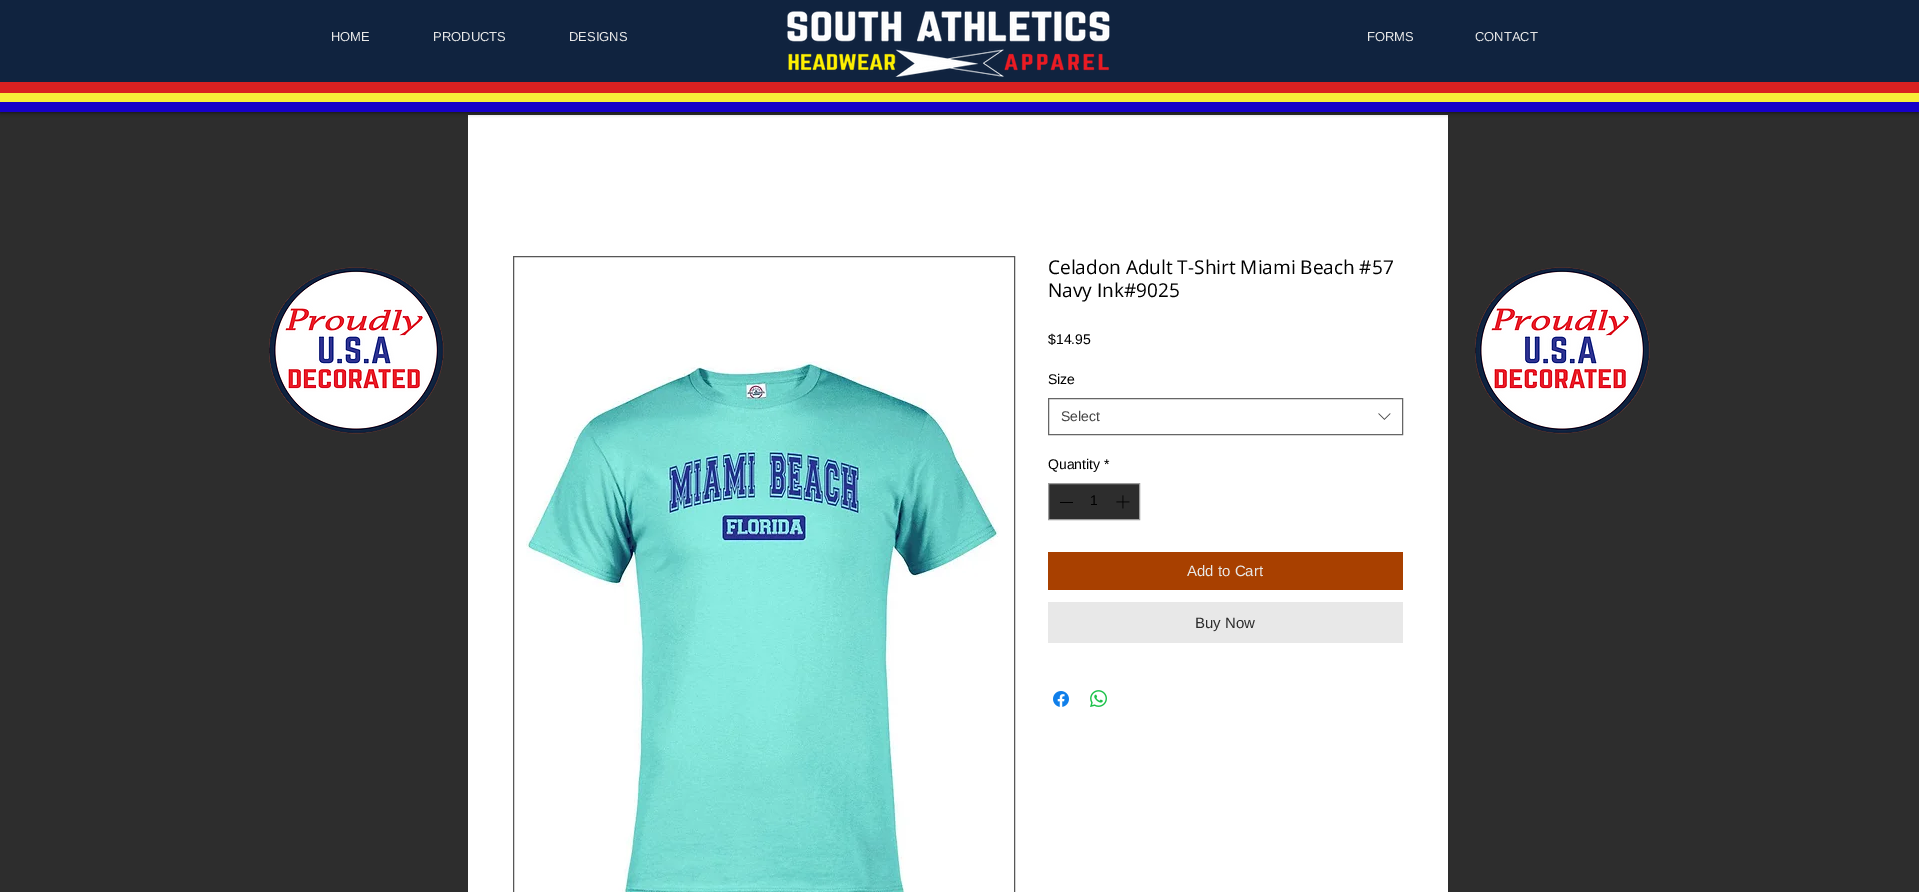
%!PS
<< /PageSize [1919 892] /PageUsesTransparency true >> setpagedevice
/rgb { 3 { 255 div 3 1 roll } repeat setrgbcolor } def
/font { [ exch dup neg 0 0 3 -1 roll 0 0 ] selectfont } def
/alpha { dup .setfillconstantalpha .setstrokeconstantalpha } def
/roundrect { 5 dict begin { /r /h /w /y /x } { exch def } forall
  x r add y moveto x w add y 2 copy h add r arct x w add y h add x 1 index r arct
  x y h add x y r arct x y 2 copy exch w add exch r arct closepath end } def
/shadow { 12 dict begin { /a /b /q /h /w /y /x } { exch def } forall gsave /was 0 def
  9 -2 -9 { dup b mul 4 div /e exch def 1 sub .425 mul 2.718 exch exp 1 add a .99 .min exch div /now exch def
    1 1 now sub 1 was sub div sub alpha /was now def
    w h .min e 2 mul add 0 gt { x e sub y e sub w e 2 mul add h e 2 mul add
      q e add b .6 mul add w h .min 2 div e add .min 0 .max roundrect fill } if } for grestore end } def
/picture { 5 dict begin { /h /w /y /x /name } { exch def } forall
  gsave x y translate w h scale
  w h 8 [w 0 0 h 0 0] name (r) file false 3 colorimage grestore end } def
0 .pushpdf14devicefilter
0 892 translate 1 -1 scale
4 setmiterlimit
45 45 45 rgb
0 0 1919 892 rectfill
255 255 255 rgb
468 115 980 777 rectfill
0 0 0 rgb
0 0 1919 112 0 2.5 0.7 shadow
23 0 201 rgb
0 102 1919 10 rectfill
16 35 63 rgb
0 0 1919 82 rectfill
(img/1.rgb) 787 11 323 66 picture
217 33 33 rgb
0 82 1919 11 rectfill
248 237 57 rgb
0 93 1919 9 rectfill
87 87 87 rgb
513.5 256.5 501 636 rectstroke
(img/2.rgb) 526 361 473 531 picture
102 102 102 rgb
1048.5 398.5 354 36 rectstroke
(img/3.rgb) 1378 413 13 7 picture
45 45 45 rgb
1048.5 483.5 moveto 1139.5 483.5 lineto 1139.5 519.5 lineto 1048.5 519.5 lineto closepath gsave fill grestore
157 157 157 rgb
stroke
0 0 0 rgb
1060 502 13 1 rectfill
(img/4.rgb) 1116 495 14 14 picture
168 64 0 rgb
1048 552 355 38 rectfill
232 232 232 rgb
1048 602 355 41 rectfill
(img/5.rgb) 1053 691 16 16 picture
(img/6.rgb) 1090 690 17 17 picture
(img/7.rgb) 269 267 175 167 picture
(img/7.rgb) 1475 267 175 167 picture
/LiberationSans-Regular 13 font
[
  [(HOME) 331 41]
  [(PRODUCTS) 433 41]
  [(DESIGNS) 569 41]
  [(FORMS) 1367 41]
  [(CONTACT) 1475 41]
] { aload pop moveto show } forall
/OpenSans-Regular 19 font
0 0 0 rgb
1048 274 moveto (Celadon Adult T-Shirt Miami Beach #57) show
1048 297 moveto (Navy Ink#9025) show
/LiberationSans-Regular 14 font
1048 344 moveto ($14.95) show
1048 384 moveto (Size) show
68 68 68 rgb
1061 421 moveto (Select) show
0 0 0 rgb
1048 469 moveto (Quantity *) show
1090 505 moveto (1) show
/LiberationSans-Regular 15 font
232 232 232 rgb
1187 576 moveto (Add to Cart) show
45 45 45 rgb
1195 628 moveto (Buy Now) show
.poppdf14devicefilter showpage
